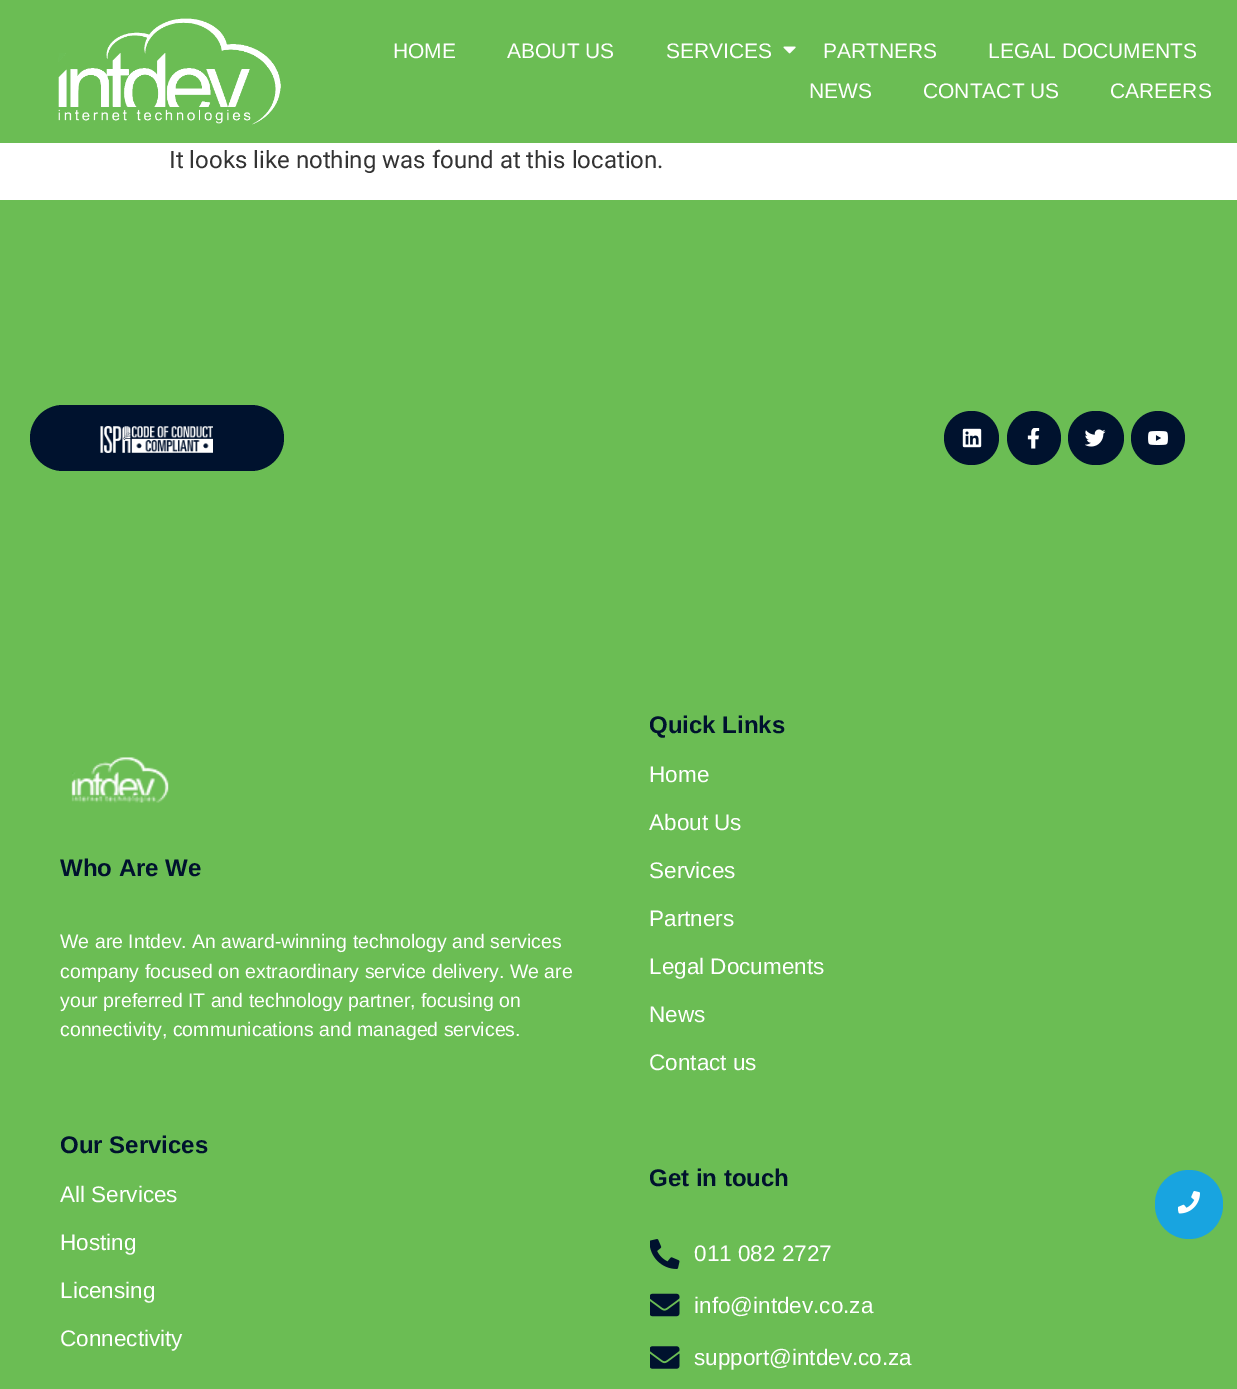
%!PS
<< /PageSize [1237 1389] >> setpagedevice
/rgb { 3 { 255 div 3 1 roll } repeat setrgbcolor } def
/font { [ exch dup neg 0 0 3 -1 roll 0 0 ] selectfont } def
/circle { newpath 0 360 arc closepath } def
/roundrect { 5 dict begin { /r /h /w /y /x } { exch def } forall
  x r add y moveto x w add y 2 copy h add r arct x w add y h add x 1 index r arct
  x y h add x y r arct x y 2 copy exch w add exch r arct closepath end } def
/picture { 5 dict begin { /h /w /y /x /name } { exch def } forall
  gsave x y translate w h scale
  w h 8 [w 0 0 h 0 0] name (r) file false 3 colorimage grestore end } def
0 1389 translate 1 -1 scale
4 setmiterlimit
255 255 255 rgb
0 0 1237 1389 rectfill
107 189 84 rgb
0 0 1237 143 rectfill
(img/1.rgb) 58 18 223 107 picture
(img/2.rgb) 783 46 13 8 picture
0 200 1237 1189 rectfill
0 18 46 rgb
30 405 254 66 33 roundrect fill
(img/3.rgb) 100 426 113 27 picture
944 411 55 54 27 roundrect fill
(img/4.rgb) 962 428 20 20 picture
1034 438 27 circle fill
(img/5.rgb) 1027 428 13 21 picture
1068 411 56 54 27 roundrect fill
(img/6.rgb) 1085 429 21 18 picture
1158 438 27 circle fill
(img/7.rgb) 1148 431 20 14 picture
(img/8.rgb) 71 757 98 46 picture
(img/9.rgb) 650 1239 30 30 picture
(img/10.rgb) 650 1293 30 24 picture
(img/11.rgb) 650 1346 30 23 picture
24 164 224 rgb
1155 1170 68 69 34 roundrect fill
(img/12.rgb) 1178 1191 22 23 picture
/LiberationSans-Regular 21 font
255 255 255 rgb
[
  [(HOME) 393 58]
  [(ABOUT US) 507 58]
  [(SERVICES) 666 58]
  [(PARTNERS) 823 58]
  [(LEGAL DOCUMENTS) 988 58]
  [(NEWS) 809 98]
  [(CONTACT US) 923 98]
  [(CAREERS) 1110 98]
] { aload pop moveto show } forall
/Roboto-Regular 24 font
51 51 51 rgb
169 168 moveto (It looks like nothing was found at this location.) show
/LiberationSans-Bold 24 font
0 18 46 rgb
60 876 moveto (Who Are We) show
/LiberationSans-Regular 19.5 font
255 255 255 rgb
[
  [(We are Intdev. An award-winning technology and services) 60 948]
  [(company focused on extraordinary service delivery. We are) 60 978]
  [(your preferred IT and technology partner, focusing on) 60 1007]
  [(connectivity, communications and managed services.) 60 1036]
] { aload pop moveto show } forall
/LiberationSans-Bold 24 font
0 18 46 rgb
649 733 moveto (Quick Links) show
/LiberationSans-Regular 22.5 font
255 255 255 rgb
[
  [(Home) 649 782]
  [(About Us) 649 830]
  [(Services) 649 878]
  [(Partners) 649 926]
  [(Legal Documents) 649 974]
  [(News) 649 1022]
  [(Contact us) 649 1070]
] { aload pop moveto show } forall
/LiberationSans-Bold 24 font
0 18 46 rgb
60 1153 moveto (Our Services) show
/LiberationSans-Regular 22.5 font
255 255 255 rgb
[
  [(All Services) 60 1202]
  [(Hosting) 60 1250]
  [(Licensing) 60 1298]
  [(Connectivity) 60 1346]
] { aload pop moveto show } forall
/LiberationSans-Bold 24 font
0 18 46 rgb
649 1186 moveto (Get in touch) show
/LiberationSans-Regular 22.5 font
255 255 255 rgb
[
  [(011 082 2727) 694 1261]
  [(info@intdev.co.za) 694 1313]
  [(support@intdev.co.za) 694 1365]
] { aload pop moveto show } forall
showpage
